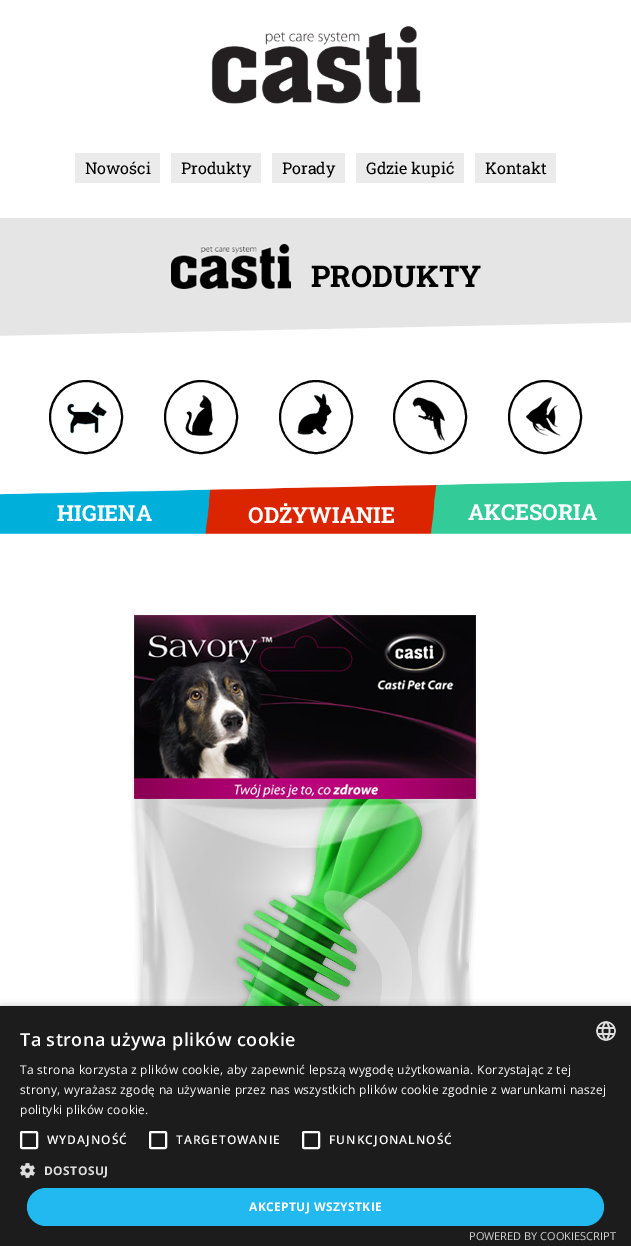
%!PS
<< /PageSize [631 1246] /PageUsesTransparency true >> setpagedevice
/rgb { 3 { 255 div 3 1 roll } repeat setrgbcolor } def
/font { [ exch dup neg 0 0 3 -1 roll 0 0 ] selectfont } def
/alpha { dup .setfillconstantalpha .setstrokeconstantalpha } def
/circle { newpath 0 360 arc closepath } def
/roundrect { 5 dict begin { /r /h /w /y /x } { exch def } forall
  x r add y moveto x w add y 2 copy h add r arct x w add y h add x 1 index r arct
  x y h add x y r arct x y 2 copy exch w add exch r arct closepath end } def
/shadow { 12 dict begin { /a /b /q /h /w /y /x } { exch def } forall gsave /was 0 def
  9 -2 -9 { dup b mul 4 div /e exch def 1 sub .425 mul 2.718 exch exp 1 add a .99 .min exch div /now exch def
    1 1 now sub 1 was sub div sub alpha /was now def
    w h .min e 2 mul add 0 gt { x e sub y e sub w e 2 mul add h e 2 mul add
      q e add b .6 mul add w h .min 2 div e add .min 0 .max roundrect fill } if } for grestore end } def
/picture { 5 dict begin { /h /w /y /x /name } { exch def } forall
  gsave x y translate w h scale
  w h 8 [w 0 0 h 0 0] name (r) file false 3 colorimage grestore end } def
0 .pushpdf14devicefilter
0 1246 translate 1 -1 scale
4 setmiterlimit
255 255 255 rgb
0 0 631 1246 rectfill
(img/1.rgb) 211 26 210 78 picture
[
  [75 153 85 30 235 235 235]
  [171 153 90 30 235 235 235]
  [272 153 73 30 235 235 235]
  [356 153 108 30 235 235 235]
  [475 153 81 30 235 235 235]
  [0 218 631 104 229 229 229]
] { aload pop rgb rectfill } forall
(img/2.rgb) 171 244 120 45 picture
(img/3.rgb) 0 322 631 28 picture
0 0 0 rgb
2 setlinewidth
86 417 36 circle stroke
(img/4.rgb) 56 401 51 43 picture
201 417 36 circle stroke
(img/5.rgb) 170 393 60 49 picture
316 417 36 circle stroke
(img/6.rgb) 285 385 53 63 picture
430 417 36 circle stroke
(img/7.rgb) 399 397 53 49 picture
545 417 36 circle stroke
(img/8.rgb) 513 397 48 39 picture
(img/9.rgb) 0 489 209 45 picture
(img/10.rgb) 209 485 225 49 picture
(img/11.rgb) 434 480 197 54 picture
(img/12.rgb) 130 614 350 392 picture
1 1008 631 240 0 4 0.35 shadow
28 28 28 rgb
0 1006 631 240 rectfill
(img/13.rgb) 596 1021 20 20 picture
255 255 255 rgb
21 1132 16 16 1 roundrect stroke
150 1132 16 16 1 roundrect stroke
303 1132 16 16 1 roundrect stroke
(img/14.rgb) 20 1163 15 15 picture
34 184 240 rgb
27 1188 577 38 19 roundrect fill
/RobotoSlab-Regular 16 font
0 0 0 rgb
[
  [(Nowości) 85 174]
  [(Produkty) 181 174]
  [(Porady) 282 174]
  [(Gdzie kupić) 366 174]
  [(Kontakt) 485 174]
] { aload pop moveto show } forall
/RobotoSlab-Bold 30 font
311 287 moveto (PRODUKTY) show
/RobotoSlab-Bold 22 font
255 255 255 rgb
[
  [(HIGIENA) 57 521]
  [(ODŻYWIANIE) 248 523]
  [(AKCESORIA) 468 520]
] { aload pop moveto show } forall
/OpenSans-SemiBold 18 font
20 1046 moveto 0.4 0 (Ta strona używa plików cookie) ashow
/OpenSans-Regular 12 font
20 1074 moveto 0.3 0 (Ta strona korzysta z plików cookie, aby zapewnić lepszą wygodę użytkowania. Korzystając z tej) ashow
20 1094 moveto 0.3 0 (strony, wyrażasz zgodę na używanie przez nas wszystkich plików cookie zgodnie z warunkami naszej) ashow
20 1114 moveto 0.3 0 (polityki plików cookie.) ashow
/OpenSans-SemiBold 12 font
47 1144 moveto 1 0 (WYDAJNOŚĆ) ashow
176 1144 moveto 1 0 (TARGETOWANIE) ashow
329 1144 moveto 1 0 (FUNKCJONALNOŚĆ) ashow
/OpenSans-Bold 12 font
221 221 221 rgb
44 1175 moveto 0.4 0 (DOSTOSUJ) ashow
255 255 255 rgb
249 1211 moveto 0.4 0 (AKCEPTUJ WSZYSTKIE) ashow
/OpenSans-Regular 11 font
210 210 210 rgb
469 1240 moveto (POWERED BY COOKIESCRIPT) show
.poppdf14devicefilter showpage
